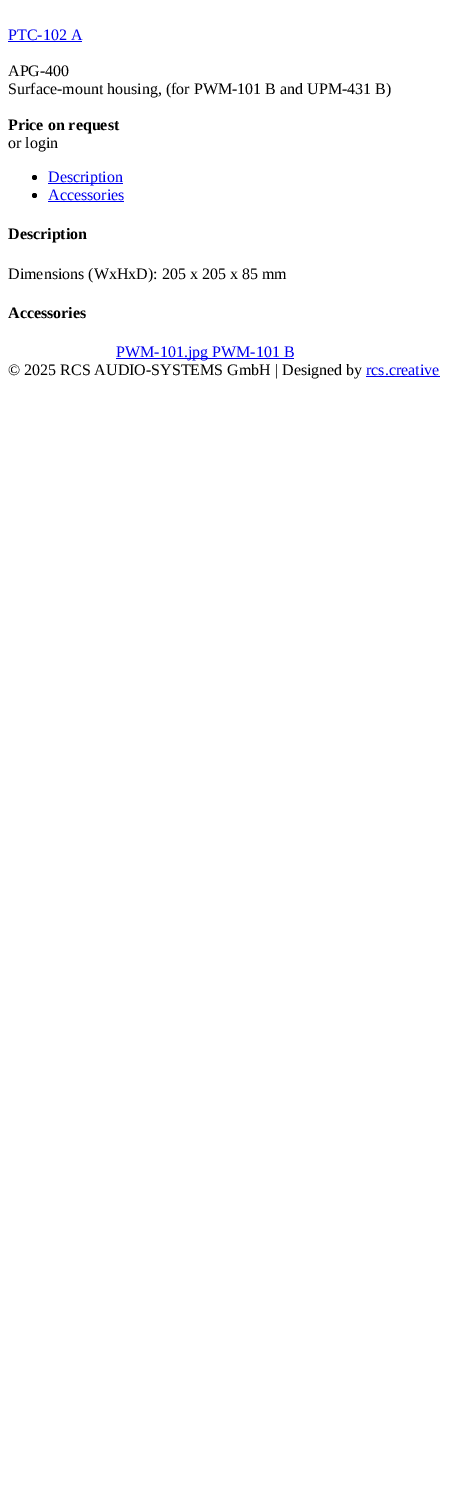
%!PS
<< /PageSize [451 1509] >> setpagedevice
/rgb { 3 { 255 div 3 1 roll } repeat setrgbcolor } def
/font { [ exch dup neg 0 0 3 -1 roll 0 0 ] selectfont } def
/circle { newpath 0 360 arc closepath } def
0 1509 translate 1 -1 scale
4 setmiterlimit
255 255 255 rgb
0 0 451 1509 rectfill
0 0 238 rgb
8 41 74 1 rectfill
0 0 0 rgb
34.5 177.5 2.5 circle fill
0 0 238 rgb
48 183 75 1 rectfill
0 0 0 rgb
34.5 195.5 2.5 circle fill
[
  [48 201 76 1 0 0 238]
  [116 358 178 1 0 0 238]
  [366 376 74 1 0 0 238]
] { aload pop rgb rectfill } forall
/LiberationSerif-Regular 16 font
8 40 moveto (PTC-102 A) show
0 0 0 rgb
8 76 moveto (APG-400) show
8 94 moveto (Surface-mount housing, \(for PWM-101 B and UPM-431 B\)) show
/LiberationSerif-Bold 16 font
8 130 moveto (Price on request) show
/LiberationSerif-Regular 16 font
8 148 moveto (or login) show
0 0 238 rgb
48 182 moveto (Description) show
48 200 moveto (Accessories) show
/LiberationSerif-Bold 16 font
0 0 0 rgb
8 239 moveto (Description) show
/LiberationSerif-Regular 16 font
8 279 moveto (Dimensions \(WxHxD\): 205 x 205 x 85 mm) show
/LiberationSerif-Bold 16 font
8 318 moveto (Accessories) show
/LiberationSerif-Regular 16 font
0 0 238 rgb
116 357 moveto (PWM-101.jpg PWM-101 B) show
0 0 0 rgb
8 375 moveto (© 2025 RCS AUDIO-SYSTEMS GmbH | Designed by) show
0 0 238 rgb
366 375 moveto (rcs.creative) show
showpage
